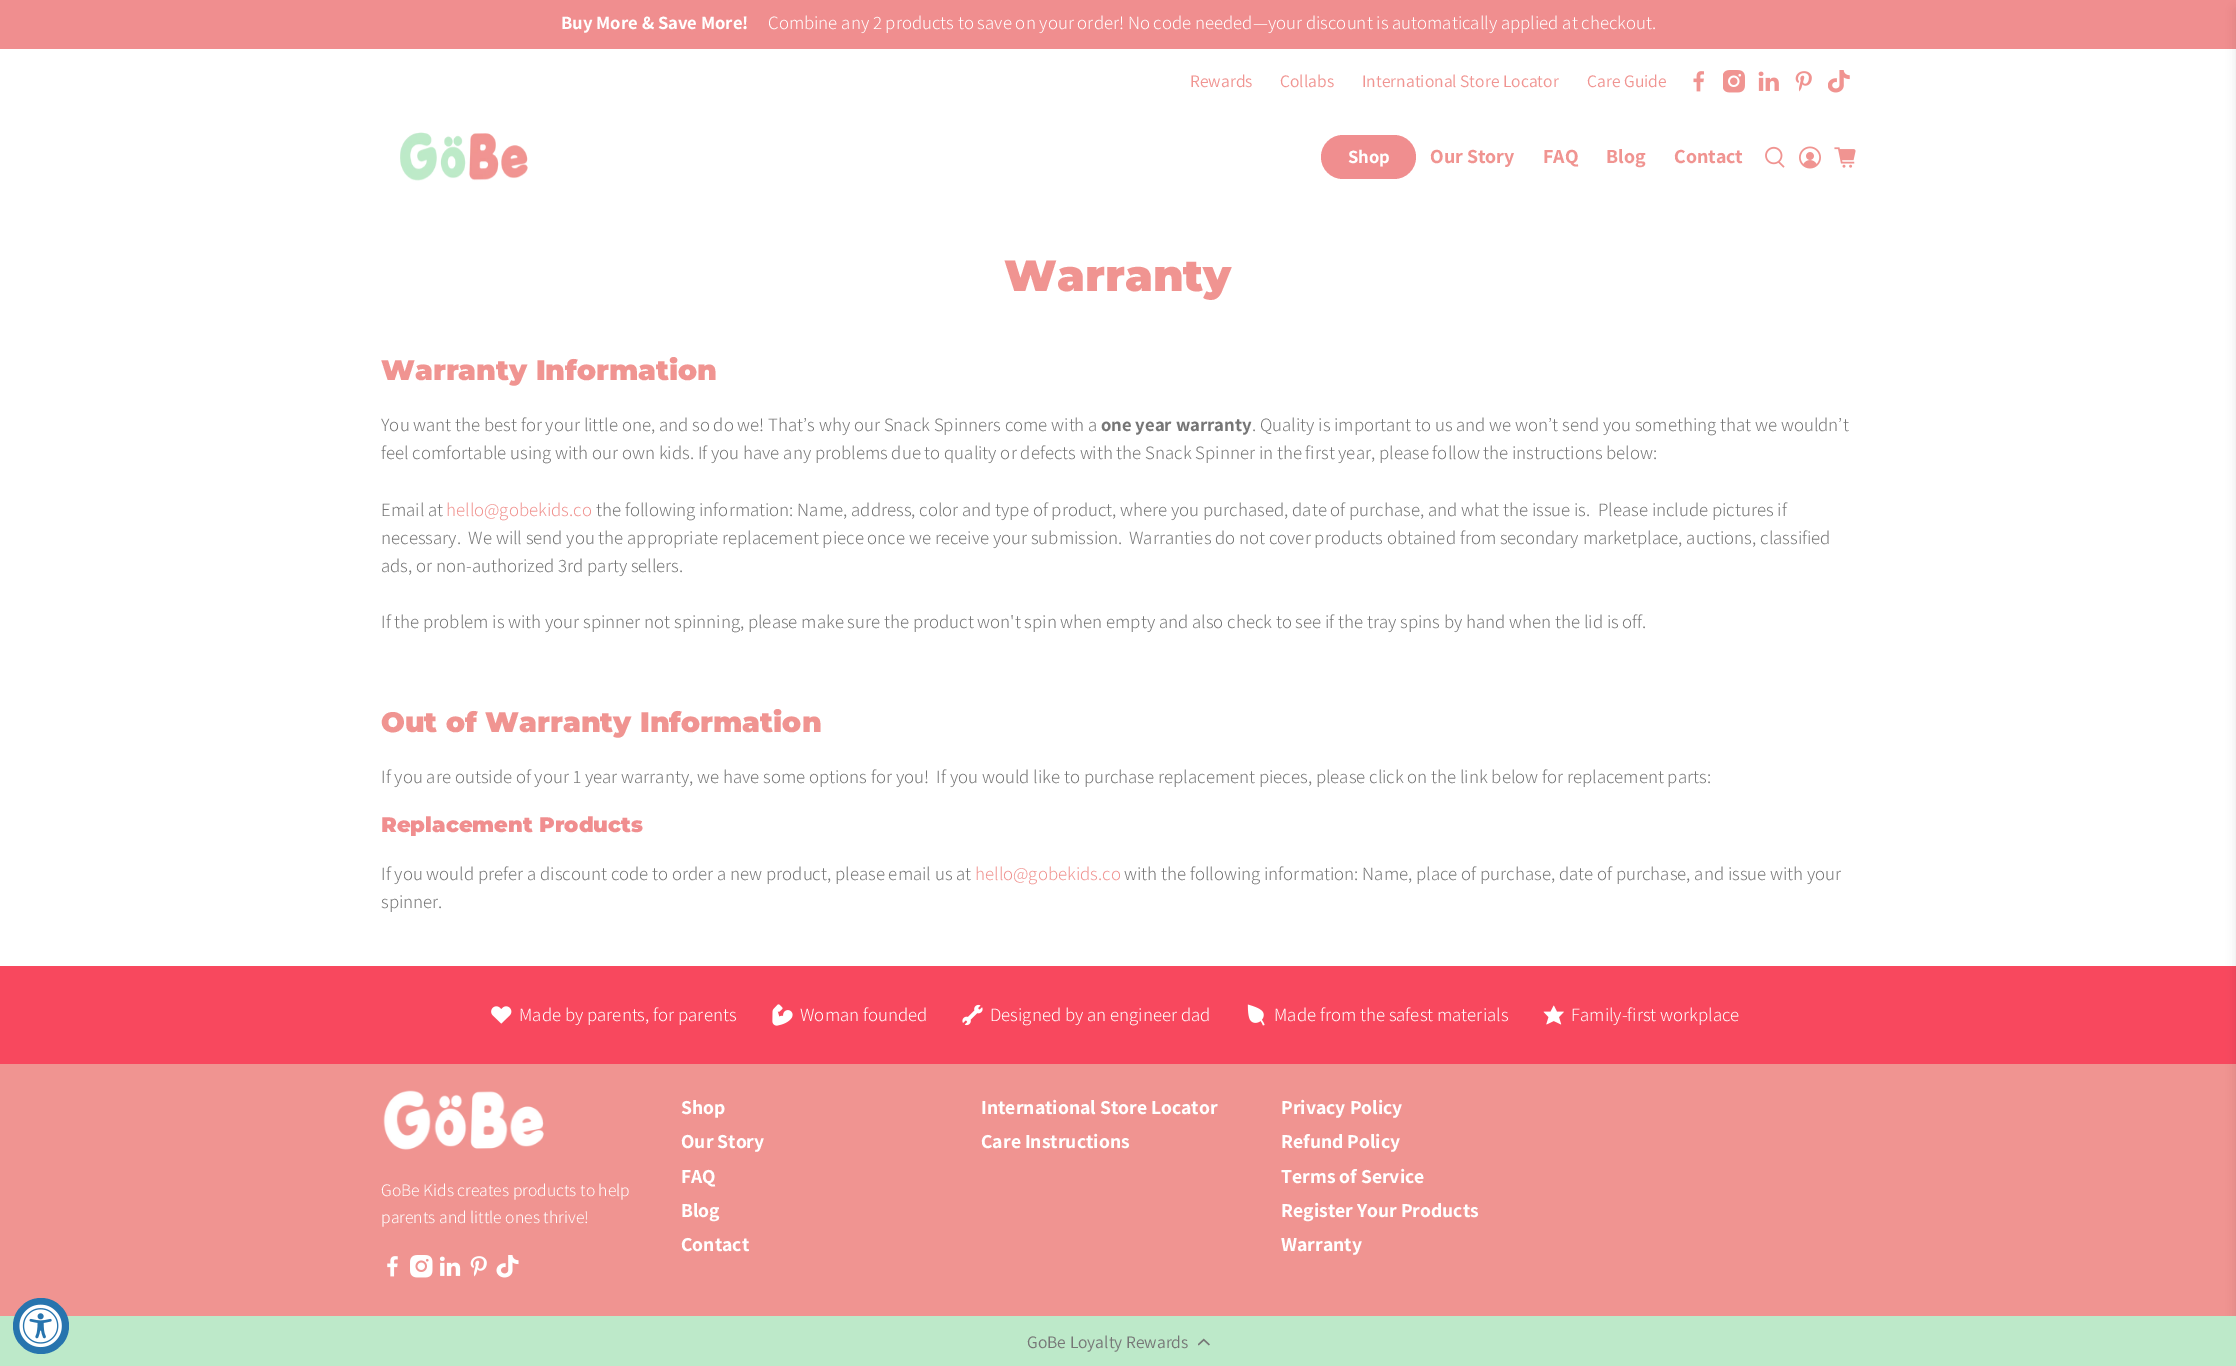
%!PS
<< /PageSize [2236 1366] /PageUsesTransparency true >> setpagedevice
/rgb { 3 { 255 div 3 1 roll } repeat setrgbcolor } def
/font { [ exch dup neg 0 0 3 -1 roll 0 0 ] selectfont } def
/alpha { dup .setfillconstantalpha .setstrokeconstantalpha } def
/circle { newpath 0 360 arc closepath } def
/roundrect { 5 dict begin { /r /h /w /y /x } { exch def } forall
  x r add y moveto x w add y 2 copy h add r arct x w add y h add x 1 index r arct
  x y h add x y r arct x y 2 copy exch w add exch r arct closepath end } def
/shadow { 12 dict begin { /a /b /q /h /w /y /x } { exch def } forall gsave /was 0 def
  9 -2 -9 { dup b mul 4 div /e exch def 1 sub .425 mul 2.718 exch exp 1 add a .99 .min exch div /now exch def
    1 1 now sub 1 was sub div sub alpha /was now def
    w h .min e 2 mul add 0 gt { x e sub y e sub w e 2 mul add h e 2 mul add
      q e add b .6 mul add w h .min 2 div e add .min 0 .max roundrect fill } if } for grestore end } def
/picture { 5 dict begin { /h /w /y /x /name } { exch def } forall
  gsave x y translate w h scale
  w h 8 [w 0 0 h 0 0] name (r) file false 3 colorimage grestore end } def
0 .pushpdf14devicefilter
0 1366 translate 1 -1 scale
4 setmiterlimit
255 255 255 rgb
0 0 2236 1366 rectfill
[
  [0 0 2236 49 240 142 143]
  [0 966 2236 98 248 72 94]
  [0 1064 2236 252 240 148 145]
] { aload pop rgb rectfill } forall
10 10 10 rgb
2236 10 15 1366 0 5 0.1 shadow
(img/1.rgb) 1693 71 11 21 picture
(img/2.rgb) 1723 70 22 23 picture
(img/3.rgb) 1758 71 21 20 picture
(img/4.rgb) 1795 71 17 21 picture
(img/5.rgb) 1828 70 22 23 picture
(img/6.rgb) 400 132 128 49 picture
240 142 143 rgb
1321 135 95 44 22 roundrect fill
(img/7.rgb) 1765 146 20 22 picture
(img/8.rgb) 1799 146 22 23 picture
(img/9.rgb) 1834 147 22 21 picture
(img/10.rgb) 491 1006 21 18 picture
(img/11.rgb) 772 1004 21 22 picture
(img/12.rgb) 962 1004 21 22 picture
(img/13.rgb) 1247 1004 18 22 picture
(img/14.rgb) 1543 1005 21 20 picture
(img/15.rgb) 383 1090 161 60 picture
(img/16.rgb) 387 1256 11 21 picture
(img/17.rgb) 410 1255 23 23 picture
(img/18.rgb) 439 1256 22 20 picture
(img/19.rgb) 470 1256 17 21 picture
(img/20.rgb) 496 1255 23 23 picture
189 233 201 rgb
0 1316 2236 50 rectfill
39 116 174 rgb
41 1326 28 circle fill
(img/21.rgb) 19 1304 43 44 picture
(img/22.rgb) 1198 1338 12 8 picture
/Assistant-Bold 18.75 font
255 255 255 rgb
561 29 moveto (Buy More & Save More!) show
/Assistant-Light 18.75 font
768 29 moveto (Combine any 2 products to save on your order! No code needed—your discount is automatically applied at checkout.) show
/Assistant-ExtraLight 17.5 font
240 148 145 rgb
[
  [(Rewards) 1190 87]
  [(Collabs) 1280 87]
  [(International Store Locator) 1362 87]
  [(Care Guide) 1587 87]
] { aload pop moveto show } forall
/Assistant-Bold 18.75 font
255 255 255 rgb
1348 163 moveto (Shop) show
/Assistant-Bold 20 font
240 148 145 rgb
[
  [(Our Story) 1430 163]
  [(FAQ) 1543 163]
  [(Blog) 1606 163]
  [(Contact) 1674 163]
] { aload pop moveto show } forall
/Montserrat-Black 43.75 font
1004 291 moveto (Warranty) show
/Montserrat-Black 28.1 font
381 380 moveto (Warranty Information) show
/Assistant-Light 18.75 font
118 118 118 rgb
381 431 moveto (You want the best for your little one, and so do we! That’s why our Snack Spinners come with a) show
/Assistant-Bold 18.75 font
1101 431 moveto (one year warranty) show
/Assistant-Light 18.75 font
[
  [(. Quality is important to us and we won’t send you something that we wouldn’t) 1252 431]
  [(feel comfortable using with our own kids. If you have any problems due to quality or defects with the Snack Spinner in the first year, please follow the instructions below:) 381 459]
  [(Email at) 381 516]
] { aload pop moveto show } forall
240 148 145 rgb
446 516 moveto (hello@gobekids.co) show
118 118 118 rgb
[
  [(the following information: Name, address, color and type of product, where you purchased, date of purchase, and what the issue is.  Please include pictures if) 596 516]
  [(necessary.  We will send you the appropriate replacement piece once we receive your submission.) 381 544]
  [(Warranties do not cover products obtained from secondary marketplace, auctions, classified) 1129 544]
  [(ads, or non-authorized 3rd party sellers.) 381 572]
  [(If the problem is with your spinner not spinning, please make sure the product won't spin when empty and also check to see if the tray spins by hand when the lid is off.) 381 628]
] { aload pop moveto show } forall
/Montserrat-Black 28.1 font
240 148 145 rgb
381 732 moveto (Out of Warranty Information) show
/Assistant-Light 18.75 font
118 118 118 rgb
381 783 moveto (If you are outside of your 1 year warranty, we have some options for you!  If you would like to purchase replacement pieces, please click on the link below for replacement parts:) show
/Montserrat-Black 21.1 font
240 142 143 rgb
381 832 moveto (Replacement Products) show
/Assistant-Light 18.75 font
118 118 118 rgb
381 880 moveto (If you would prefer a discount code to order a new product, please email us at) show
240 148 145 rgb
975 880 moveto (hello@gobekids.co) show
118 118 118 rgb
1124 880 moveto (with the following information: Name, place of purchase, date of purchase, and issue with your) show
381 908 moveto (spinner.) show
255 255 255 rgb
[
  [(Made by parents, for parents) 519 1021]
  [(Woman founded) 800 1021]
  [(Designed by an engineer dad) 990 1021]
  [(Made from the safest materials) 1274 1021]
  [(Family-first workplace) 1571 1021]
] { aload pop moveto show } forall
/Assistant-Light 17.5 font
381 1196 moveto (GoBe Kids creates products to help) show
381 1223 moveto (parents and little ones thrive!) show
/Assistant-Bold 19.75 font
[
  [(Shop) 681 1114]
  [(Our Story) 681 1148]
  [(FAQ) 681 1183]
  [(Blog) 681 1217]
  [(Contact) 681 1251]
  [(International Store Locator) 981 1114]
  [(Care Instructions) 981 1148]
  [(Privacy Policy) 1281 1114]
  [(Refund Policy) 1281 1148]
  [(Terms of Service) 1281 1183]
  [(Register Your Products) 1281 1217]
  [(Warranty) 1281 1251]
] { aload pop moveto show } forall
/Assistant-ExtraLight 17.5 font
118 118 118 rgb
1027 1348 moveto (GoBe Loyalty Rewards) show
.poppdf14devicefilter showpage
